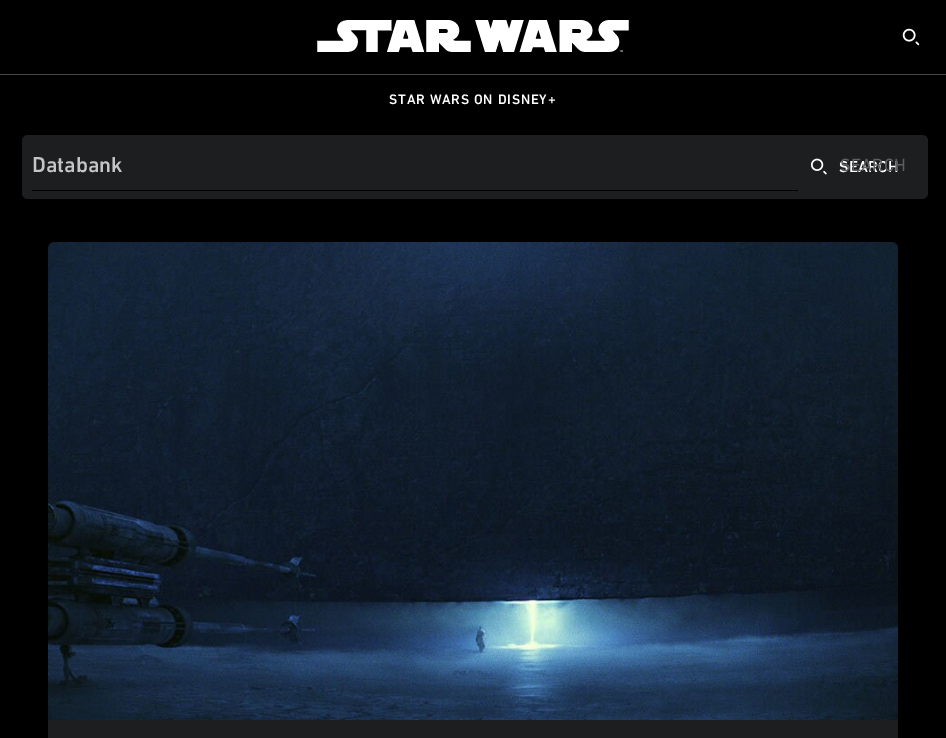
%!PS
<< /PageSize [946 738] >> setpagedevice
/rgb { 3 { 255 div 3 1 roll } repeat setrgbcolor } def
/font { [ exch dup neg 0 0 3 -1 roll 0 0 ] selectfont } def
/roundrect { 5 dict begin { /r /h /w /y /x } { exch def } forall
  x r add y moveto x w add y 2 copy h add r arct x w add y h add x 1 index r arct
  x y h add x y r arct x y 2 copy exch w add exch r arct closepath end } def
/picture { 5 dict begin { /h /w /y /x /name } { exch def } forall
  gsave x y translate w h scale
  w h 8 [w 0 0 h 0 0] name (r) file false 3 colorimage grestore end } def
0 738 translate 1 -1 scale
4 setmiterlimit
0 0 0 rgb
0 0 946 738 rectfill
72 73 74 rgb
0 74 946 1 rectfill
(img/1.rgb) 317 20 312 32 picture
(img/2.rgb) 902 28 18 18 picture
29 30 31 rgb
22 135 906 64 6 roundrect fill
0 0 0 rgb
32 190 766 1 rectfill
(img/3.rgb) 810 158 17 17 picture
(img/4.rgb) 48 242 850 478 picture
29 30 31 rgb
48 720 850 18 rectfill
/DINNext-Medium 14 font
255 255 255 rgb
389 104 moveto 0.8 0 (STAR WARS ON DISNEY+) ashow
/DINNext-Medium 22 font
197 197 197 rgb
32 172 moveto (Databank) show
/DINNext-Medium 16 font
255 255 255 rgb
839 172 moveto 0.25 0 (SEARCH) ashow
/DINNext-Regular 18 font
93 94 95 rgb
840 171 moveto 0.25 0 (SEARCH) ashow
showpage
